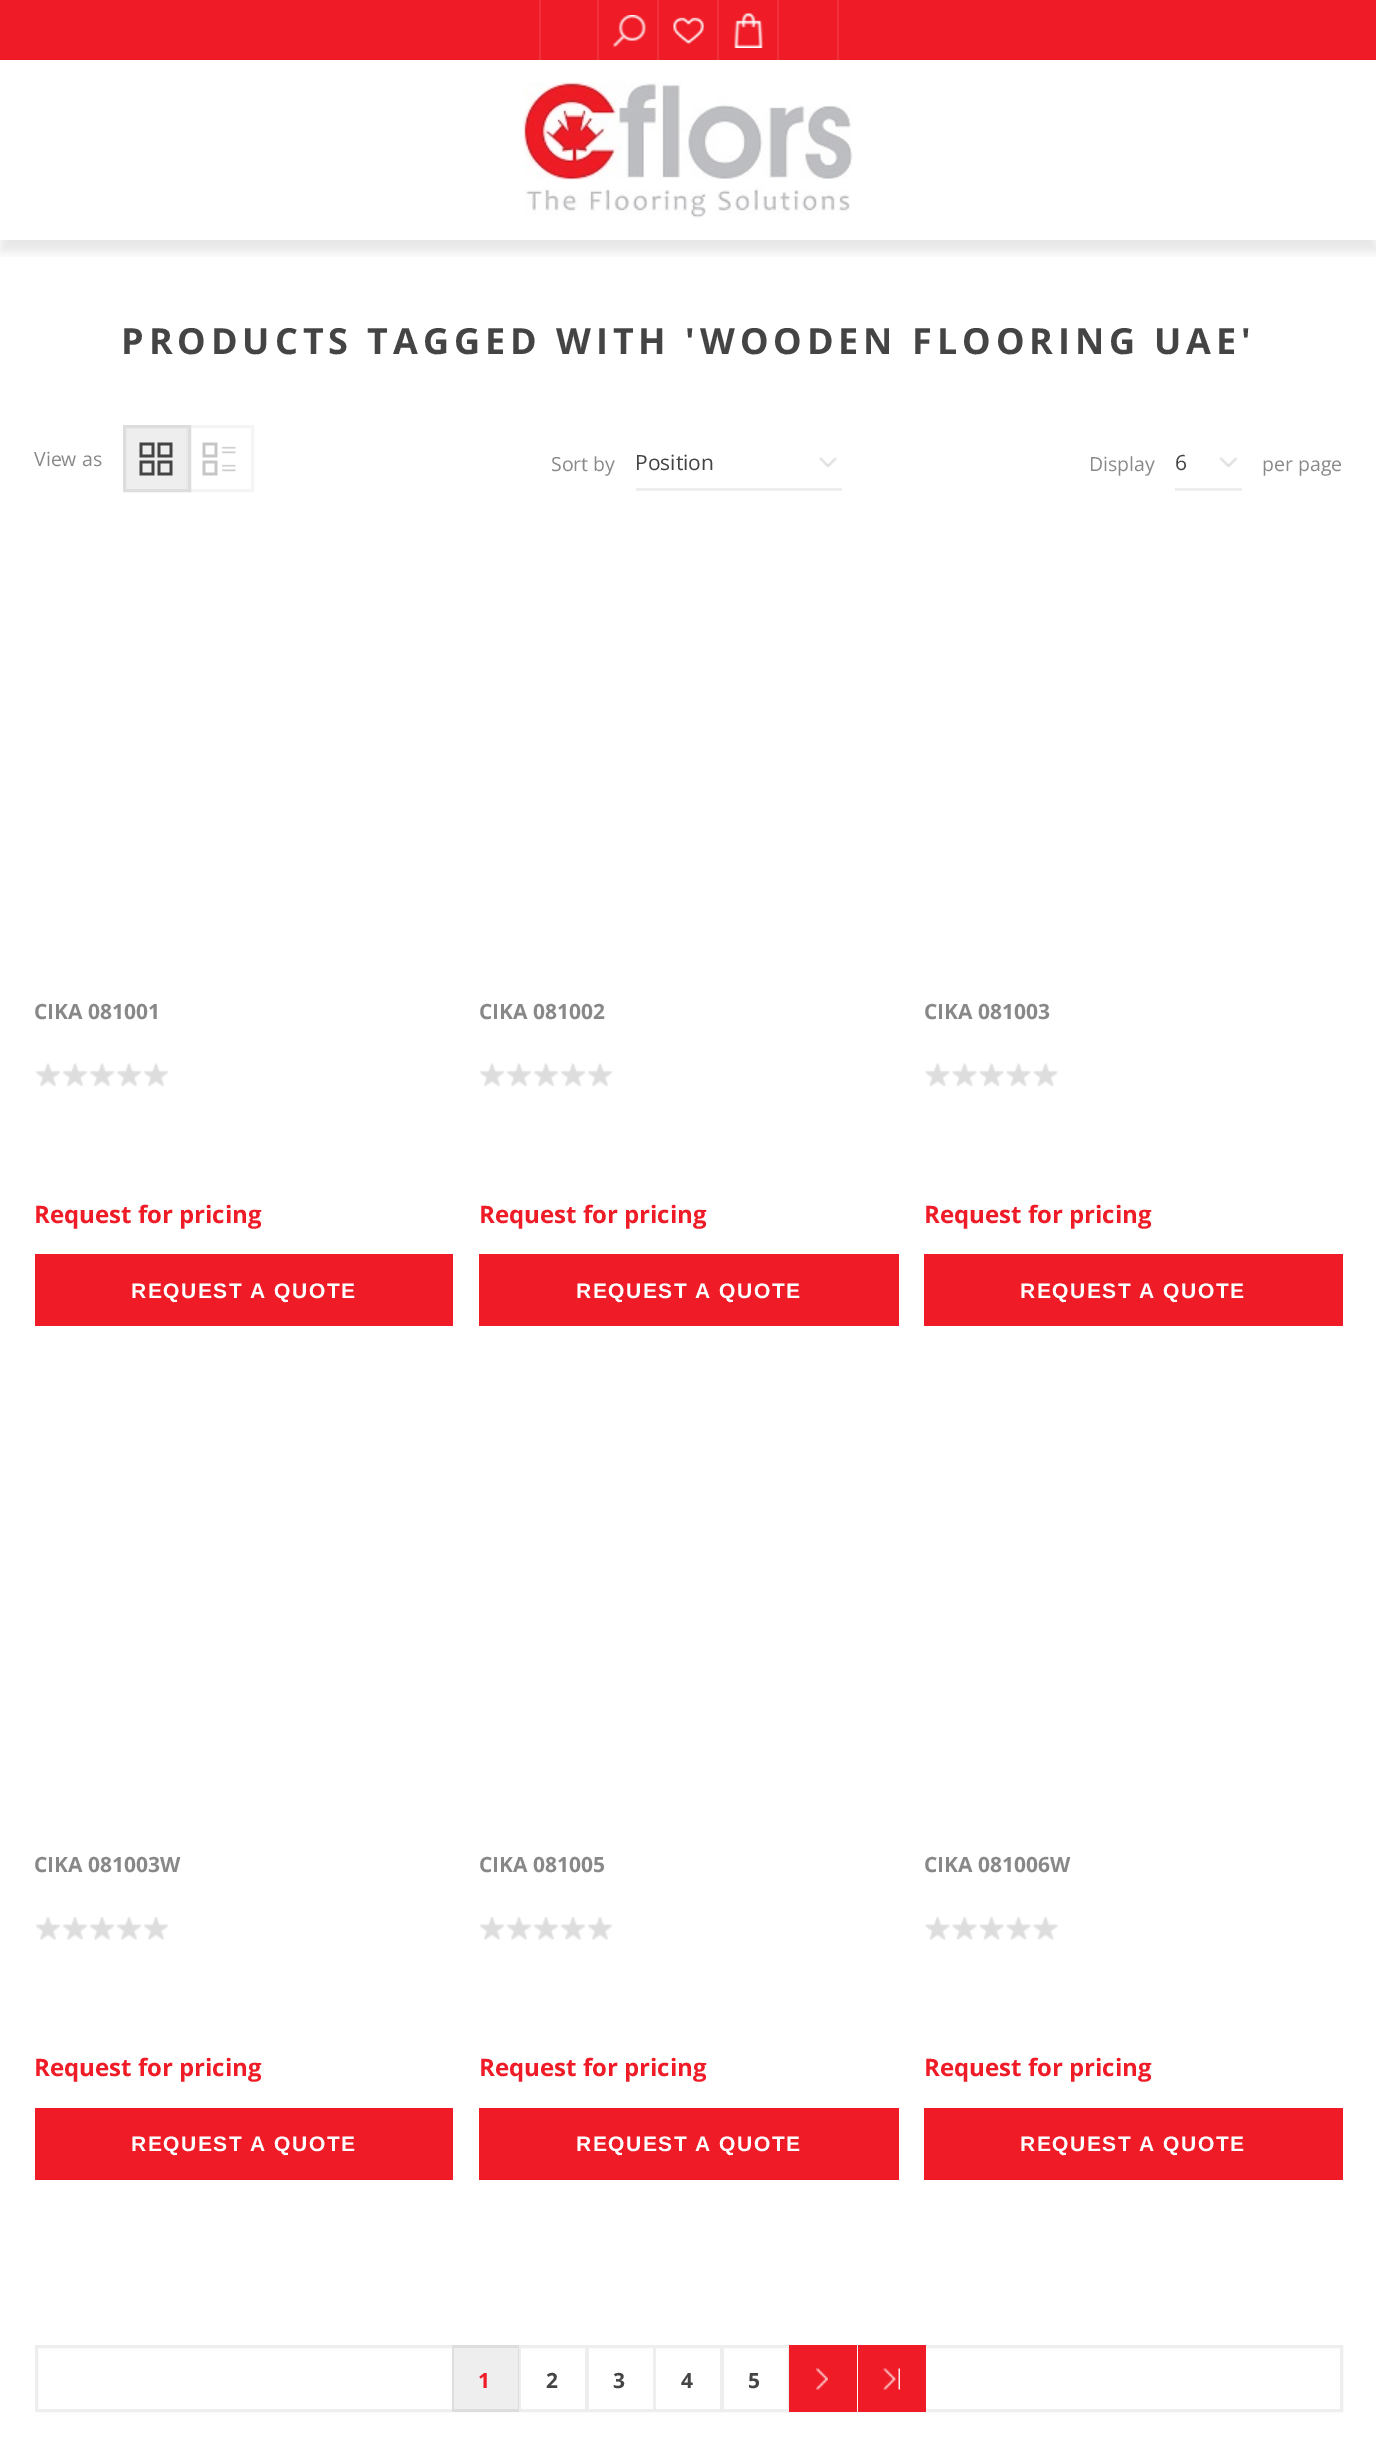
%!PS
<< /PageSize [1376 2441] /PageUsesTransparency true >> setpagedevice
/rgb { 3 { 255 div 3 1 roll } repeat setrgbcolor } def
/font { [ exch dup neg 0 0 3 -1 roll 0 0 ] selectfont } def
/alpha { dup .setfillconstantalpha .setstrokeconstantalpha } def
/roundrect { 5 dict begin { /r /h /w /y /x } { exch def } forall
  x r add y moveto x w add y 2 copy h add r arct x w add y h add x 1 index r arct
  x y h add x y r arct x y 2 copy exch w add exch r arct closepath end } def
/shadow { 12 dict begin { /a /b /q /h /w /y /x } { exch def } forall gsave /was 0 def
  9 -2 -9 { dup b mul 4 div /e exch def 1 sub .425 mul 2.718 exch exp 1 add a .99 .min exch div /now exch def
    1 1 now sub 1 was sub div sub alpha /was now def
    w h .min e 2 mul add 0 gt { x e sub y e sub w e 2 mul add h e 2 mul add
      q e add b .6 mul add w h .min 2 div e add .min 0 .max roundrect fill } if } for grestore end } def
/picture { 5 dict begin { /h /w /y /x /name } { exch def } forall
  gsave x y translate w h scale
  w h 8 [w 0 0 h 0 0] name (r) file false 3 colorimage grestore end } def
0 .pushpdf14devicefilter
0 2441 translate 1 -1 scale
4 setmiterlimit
255 255 255 rgb
0 0 1376 2441 rectfill
gsave
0 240 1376 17 rectclip
0 0 0 rgb
0 72 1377 180 0 6 0.09 shadow
grestore
[
  [0 0 1376 60 239 27 39]
  [597 0 2 60 241 50 61]
  [539 0 2 60 241 50 61]
] { aload pop rgb rectfill } forall
(img/1.rgb) 613 15 33 32 picture
657 0 2 60 rectfill
(img/2.rgb) 673 17 31 27 picture
717 0 2 60 rectfill
(img/3.rgb) 734 13 29 35 picture
777 0 2 60 rectfill
837 0 2 60 rectfill
(img/4.rgb) 523 82 330 136 picture
238 238 238 rgb
126 428 62 61 rectfill
(img/5.rgb) 139 442 34 34 picture
221 221 221 rgb
3 setlinewidth
124.5 426.5 65 64 rectstroke
(img/6.rgb) 202 442 34 34 picture
0.3 alpha
187.5 426.5 65 64 rectstroke
1 alpha
(img/7.rgb) 819 457 18 11 picture
238 238 238 rgb
636 488 206 3 rectfill
(img/8.rgb) 1219 457 19 11 picture
1175 488 67 3 rectfill
(img/9.rgb) 36 1063 132 23 picture
239 27 39 rgb
35 1254 418 72 rectfill
(img/9.rgb) 480 1063 132 23 picture
479 1254 420 72 rectfill
(img/10.rgb) 925 1063 133 23 picture
924 1254 419 72 rectfill
(img/11.rgb) 36 1917 133 23 picture
35 2108 418 72 rectfill
(img/11.rgb) 480 1917 133 23 picture
479 2108 420 72 rectfill
(img/12.rgb) 925 1917 133 23 picture
924 2108 419 72 rectfill
238 238 238 rgb
36.5 2346.5 1305 64 rectstroke
[
  [454 2348 64 61 238 238 238]
  [452 2345 67 3 221 221 221]
  [518 2345 1 67 221 221 221]
  [452 2409 67 3 221 221 221]
  [452 2345 2 67 221 221 221]
  [585 2345 4 67 238 238 238]
  [519 2345 2 67 238 238 238]
  [653 2345 3 67 238 238 238]
  [720 2345 4 67 238 238 238]
  [788 2345 1 67 238 238 238]
  [789 2345 68 67 239 27 39]
] { aload pop rgb rectfill } forall
(img/13.rgb) 816 2368 12 22 picture
858 2345 68 67 rectfill
(img/14.rgb) 883 2368 17 22 picture
/OpenSans-Bold 36 font
68 68 68 rgb
121 354 moveto 4.95 0 (PRODUCTS TAGGED WITH 'WOODEN FLOORING UAE') ashow
/OpenSans-Regular 19.5 font
136 136 136 rgb
34 466 moveto (View as) show
551 471 moveto (Sort by) show
/OpenSans-Regular 21 font
68 68 68 rgb
635 470 moveto (Position) show
/OpenSans-Regular 19.5 font
136 136 136 rgb
1089 471 moveto (Display) show
/OpenSans-Regular 21 font
68 68 68 rgb
1175 470 moveto (6) show
/OpenSans-Regular 19.5 font
136 136 136 rgb
1262 471 moveto (per page) show
/OpenSans-Bold 21 font
34 1019 moveto (CIKA 081001) show
/OpenSans-Bold 24 font
239 27 39 rgb
34 1223 moveto (Request for pricing) show
/LiberationSans-Bold 21 font
255 255 255 rgb
131 1298 moveto 1.5 0 (REQUEST A QUOTE) ashow
/OpenSans-Bold 21 font
136 136 136 rgb
479 1019 moveto (CIKA 081002) show
/OpenSans-Bold 24 font
239 27 39 rgb
479 1223 moveto (Request for pricing) show
/LiberationSans-Bold 21 font
255 255 255 rgb
576 1298 moveto 1.5 0 (REQUEST A QUOTE) ashow
/OpenSans-Bold 21 font
136 136 136 rgb
924 1019 moveto (CIKA 081003) show
/OpenSans-Bold 24 font
239 27 39 rgb
924 1223 moveto (Request for pricing) show
/LiberationSans-Bold 21 font
255 255 255 rgb
1020 1298 moveto 1.5 0 (REQUEST A QUOTE) ashow
/OpenSans-Bold 21 font
136 136 136 rgb
34 1872 moveto (CIKA 081003W) show
/OpenSans-Bold 24 font
239 27 39 rgb
34 2076 moveto (Request for pricing) show
/LiberationSans-Bold 21 font
255 255 255 rgb
131 2151 moveto 1.5 0 (REQUEST A QUOTE) ashow
/OpenSans-Bold 21 font
136 136 136 rgb
479 1872 moveto (CIKA 081005) show
/OpenSans-Bold 24 font
239 27 39 rgb
479 2076 moveto (Request for pricing) show
/LiberationSans-Bold 21 font
255 255 255 rgb
576 2151 moveto 1.5 0 (REQUEST A QUOTE) ashow
/OpenSans-Bold 21 font
136 136 136 rgb
924 1872 moveto (CIKA 081006W) show
/OpenSans-Bold 24 font
239 27 39 rgb
924 2076 moveto (Request for pricing) show
/LiberationSans-Bold 21 font
255 255 255 rgb
1020 2151 moveto 1.5 0 (REQUEST A QUOTE) ashow
/OpenSans-Bold 21 font
239 27 39 rgb
478 2388 moveto (1) show
68 68 68 rgb
[
  [(2) 546 2388]
  [(3) 613 2388]
  [(4) 681 2388]
  [(5) 748 2388]
] { aload pop moveto show } forall
.poppdf14devicefilter showpage
